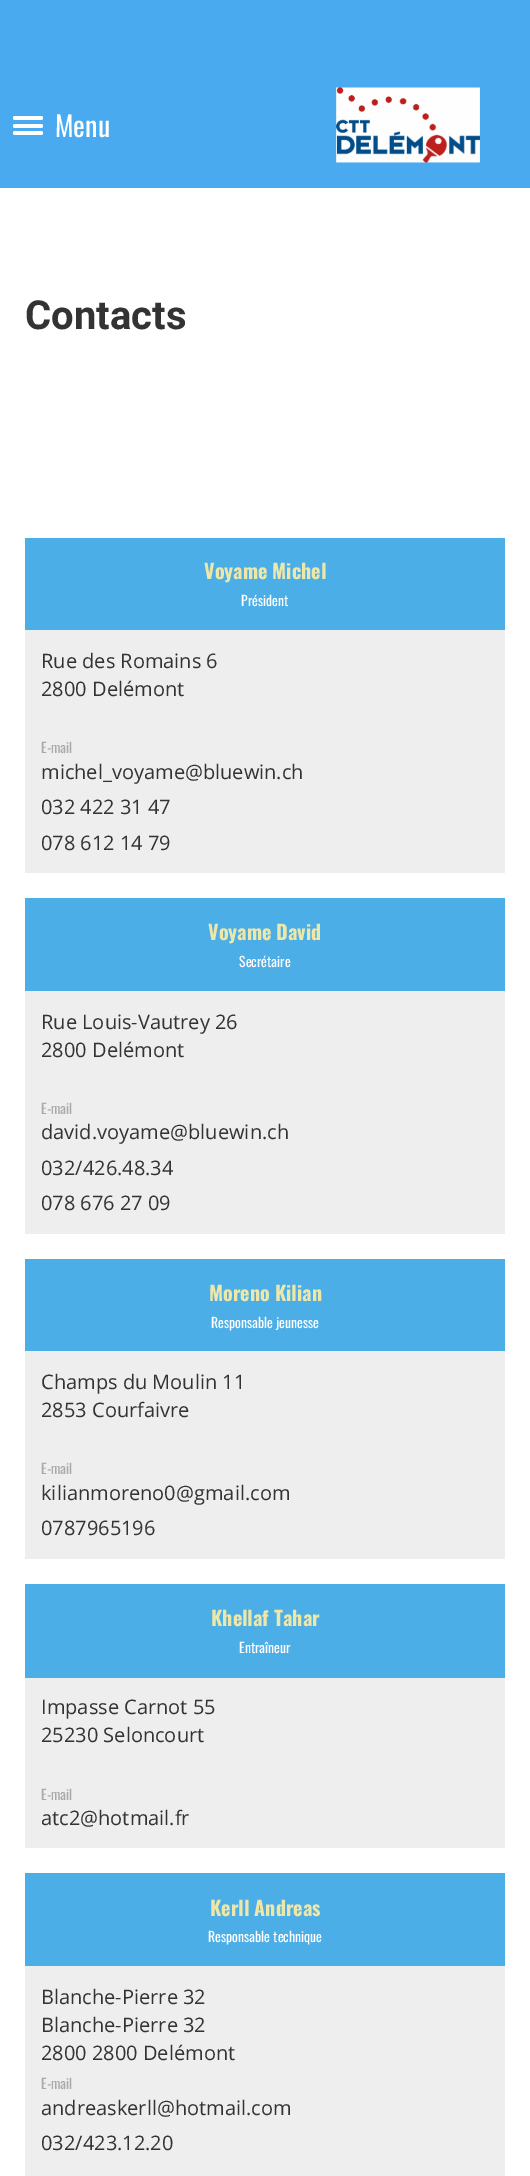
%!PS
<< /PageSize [530 2176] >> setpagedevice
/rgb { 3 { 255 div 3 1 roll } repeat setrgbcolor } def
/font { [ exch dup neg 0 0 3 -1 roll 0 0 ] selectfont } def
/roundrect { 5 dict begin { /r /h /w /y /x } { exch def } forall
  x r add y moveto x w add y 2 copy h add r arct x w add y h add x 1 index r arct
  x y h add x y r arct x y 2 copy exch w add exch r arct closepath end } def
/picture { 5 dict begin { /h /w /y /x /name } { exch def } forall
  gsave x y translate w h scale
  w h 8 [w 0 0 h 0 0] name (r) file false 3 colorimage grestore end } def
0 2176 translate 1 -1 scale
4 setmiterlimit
255 255 255 rgb
0 0 530 2176 rectfill
73 170 239 rgb
0 0 530 188 rectfill
255 255 255 rgb
13 116 30 4 2 roundrect fill
13 124 30 4 2 roundrect fill
13 131 30 4 2 roundrect fill
(img/1.rgb) 336 87 144 76 picture
[
  [25 630 480 243 238 238 238]
  [25 538 480 92 76 174 230]
  [25 991 480 243 238 238 238]
  [25 898 480 93 76 174 230]
  [25 1351 480 208 238 238 238]
  [25 1259 480 92 76 174 230]
  [25 1678 480 170 238 238 238]
  [25 1584 480 94 76 174 230]
  [25 1966 480 210 238 238 238]
  [25 1873 480 93 76 174 230]
] { aload pop rgb rectfill } forall
/Oswald-Regular 28 font
255 255 255 rgb
55 137 moveto (Menu) show
/Roboto-Bold 40 font
51 51 51 rgb
25 329 moveto (Contacts) show
/Oswald-Bold 20 font
238 231 170 rgb
204 579 moveto (Voyame Michel) show
/Oswald-Regular 13.75 font
255 255 255 rgb
241 606 moveto (Président) show
/OpenSans-Regular 20 font
51 51 51 rgb
41 668 moveto (Rue des Romains 6) show
41 696 moveto (2800 Delémont) show
/Oswald-Regular 13.75 font
169 169 169 rgb
41 753 moveto (E-mail) show
/OpenSans-Regular 20 font
51 51 51 rgb
[
  [(michel_voyame@bluewin.ch) 41 779]
  [(032 422 31 47) 41 814]
  [(078 612 14 79) 41 850]
] { aload pop moveto show } forall
/Oswald-Bold 20 font
238 231 170 rgb
208 940 moveto (Voyame David) show
/Oswald-Regular 13.75 font
255 255 255 rgb
239 967 moveto (Secrétaire) show
/OpenSans-Regular 20 font
51 51 51 rgb
41 1029 moveto (Rue Louis-Vautrey 26) show
41 1057 moveto (2800 Delémont) show
/Oswald-Regular 13.75 font
169 169 169 rgb
41 1114 moveto (E-mail) show
/OpenSans-Regular 20 font
51 51 51 rgb
[
  [(david.voyame@bluewin.ch) 41 1139]
  [(032/426.48.34) 41 1175]
  [(078 676 27 09) 41 1210]
] { aload pop moveto show } forall
/Oswald-Bold 20 font
238 231 170 rgb
209 1301 moveto (Moreno Kilian) show
/Oswald-Regular 13.75 font
255 255 255 rgb
211 1328 moveto (Responsable jeunesse) show
/OpenSans-Regular 20 font
51 51 51 rgb
41 1389 moveto (Champs du Moulin 11) show
41 1417 moveto (2853 Courfaivre) show
/Oswald-Regular 13.75 font
169 169 169 rgb
41 1474 moveto (E-mail) show
/OpenSans-Regular 20 font
51 51 51 rgb
41 1500 moveto (kilianmoreno0@gmail.com) show
41 1535 moveto (0787965196) show
/Oswald-Bold 20 font
238 231 170 rgb
211 1626 moveto (Khellaf Tahar) show
/Oswald-Regular 13.75 font
255 255 255 rgb
239 1653 moveto (Entraîneur) show
/OpenSans-Regular 20 font
51 51 51 rgb
41 1714 moveto (Impasse Carnot 55) show
41 1742 moveto (25230 Seloncourt) show
/Oswald-Regular 13.75 font
169 169 169 rgb
41 1800 moveto (E-mail) show
/OpenSans-Regular 20 font
51 51 51 rgb
41 1825 moveto (atc2@hotmail.fr) show
/Oswald-Bold 20 font
238 231 170 rgb
210 1916 moveto (Kerll Andreas) show
/Oswald-Regular 13.75 font
255 255 255 rgb
208 1942 moveto (Responsable technique) show
/OpenSans-Regular 20 font
51 51 51 rgb
[
  [(Blanche-Pierre 32) 41 2004]
  [(Blanche-Pierre 32) 41 2032]
  [(2800 2800 Delémont) 41 2060]
] { aload pop moveto show } forall
/Oswald-Regular 13.75 font
169 169 169 rgb
41 2089 moveto (E-mail) show
/OpenSans-Regular 20 font
51 51 51 rgb
41 2115 moveto (andreaskerll@hotmail.com) show
41 2150 moveto (032/423.12.20) show
showpage
